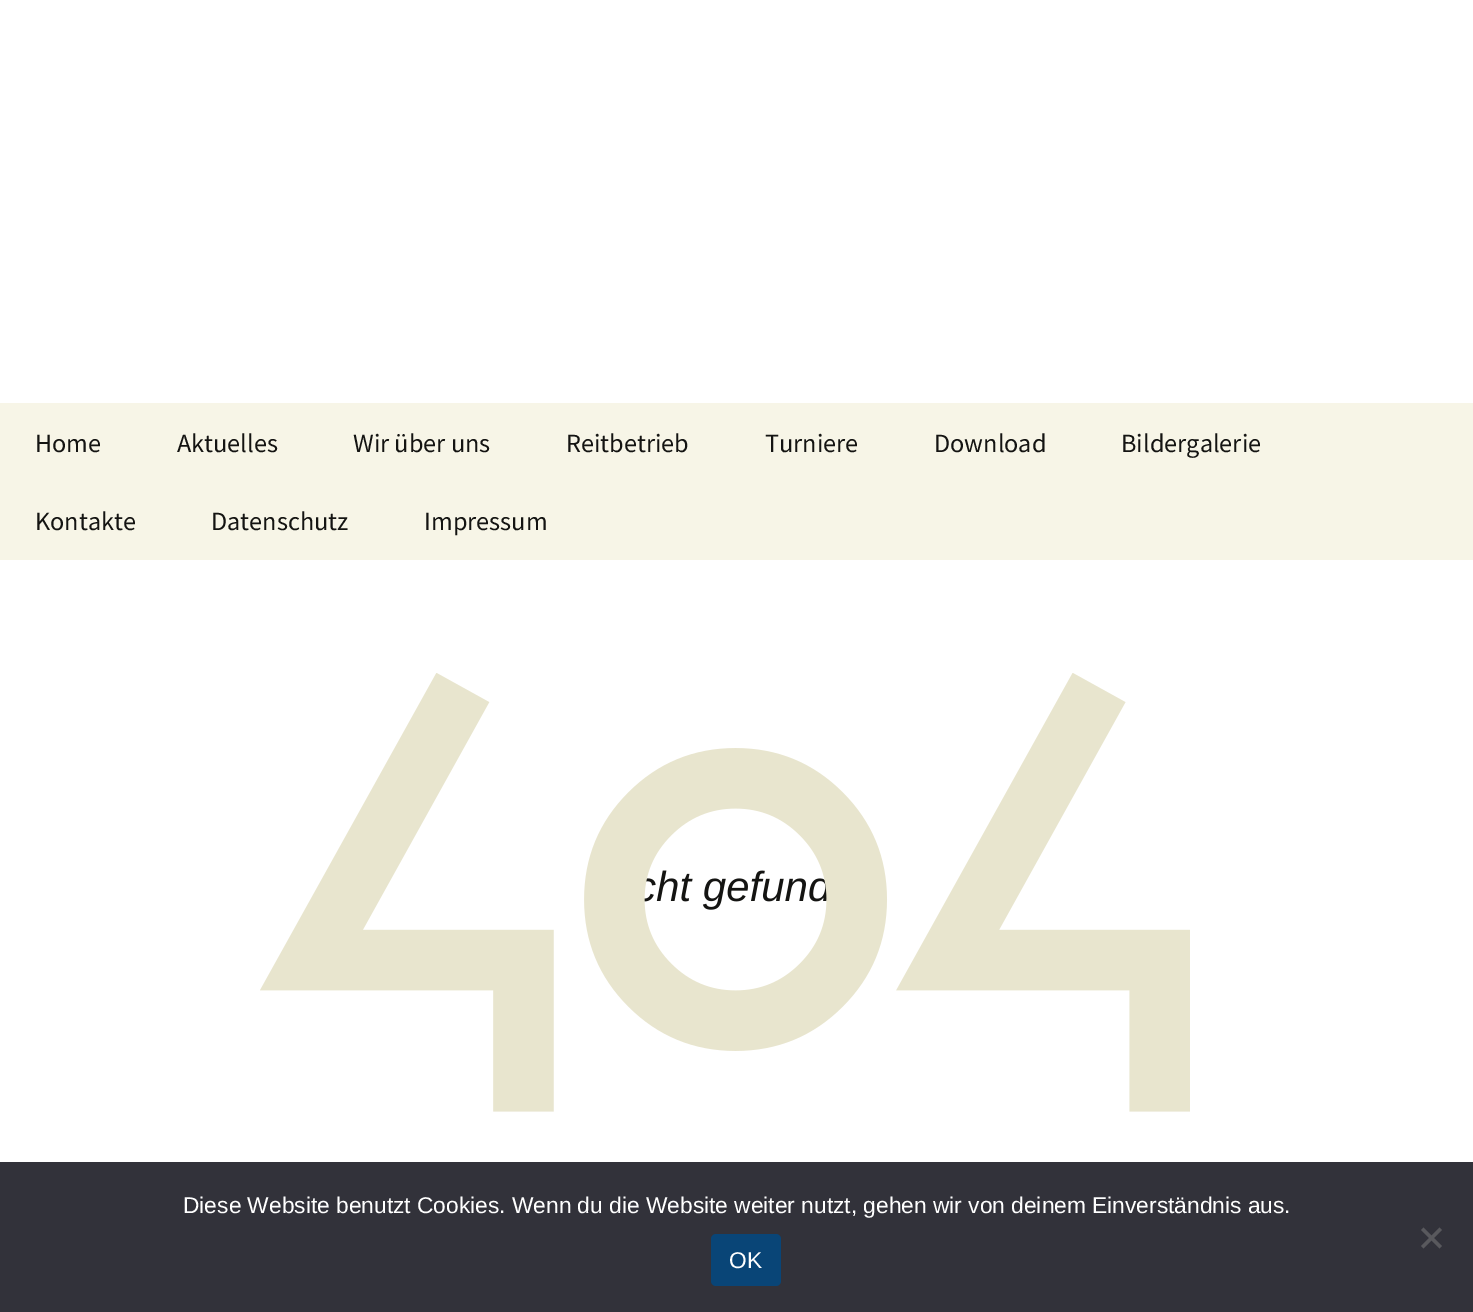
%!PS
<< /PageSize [1473 1312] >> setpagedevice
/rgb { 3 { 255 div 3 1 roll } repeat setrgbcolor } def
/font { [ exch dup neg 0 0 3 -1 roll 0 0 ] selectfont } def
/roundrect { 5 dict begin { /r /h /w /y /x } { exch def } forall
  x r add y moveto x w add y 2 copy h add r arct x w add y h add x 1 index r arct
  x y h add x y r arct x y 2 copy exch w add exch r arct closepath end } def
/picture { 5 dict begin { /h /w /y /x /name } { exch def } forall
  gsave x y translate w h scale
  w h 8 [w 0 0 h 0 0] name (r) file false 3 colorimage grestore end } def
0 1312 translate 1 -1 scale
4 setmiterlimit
255 255 255 rgb
0 0 1473 1312 rectfill
247 245 231 rgb
0 403 1473 157 rectfill
50 50 58 rgb
0 1162 1473 150 rectfill
89 89 93 rgb
1439.5 1227.5 moveto 1442 1230 lineto 1423.5 1248.5 lineto 1421 1246 lineto closepath fill
1421 1230 moveto 1423.5 1227.5 lineto 1442 1246 lineto 1439.5 1248.5 lineto closepath fill
9 69 119 rgb
711 1234 70 52 5 roundrect fill
/SourceSansPro-Regular 26.25 font
20 20 18 rgb
[
  [(Home) 35 452]
  [(Aktuelles) 177 452]
  [(Wir über uns) 353 452]
  [(Reitbetrieb) 566 452]
  [(Turniere) 765 452]
  [(Download) 934 452]
  [(Bildergalerie) 1121 452]
  [(Kontakte) 35 530]
  [(Datenschutz) 211 530]
  [(Impressum) 424 530]
] { aload pop moveto show } forall
/LiberationSans-Italic 42 font
656 901 moveto (ht gefund) show
(img/1.rgb) 260 673 930 439 picture
/LiberationSans-Regular 22.75 font
255 255 255 rgb
183 1213 moveto (Diese Website benutzt Cookies. Wenn du die Website weiter nutzt, gehen wir von deinem Einverständnis aus.) show
729 1268 moveto (OK) show
showpage
